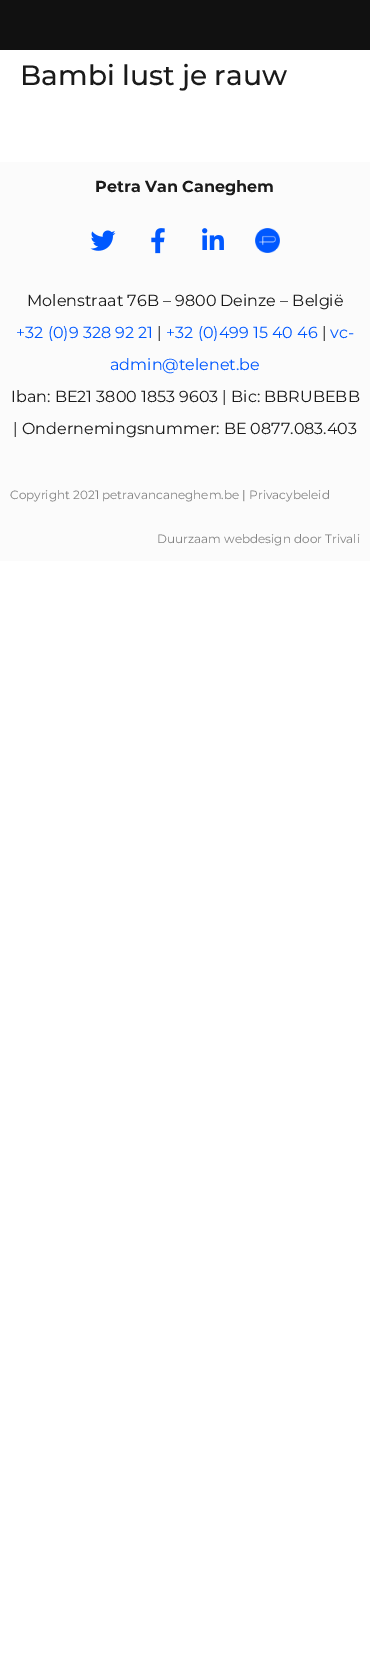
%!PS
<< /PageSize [370 1662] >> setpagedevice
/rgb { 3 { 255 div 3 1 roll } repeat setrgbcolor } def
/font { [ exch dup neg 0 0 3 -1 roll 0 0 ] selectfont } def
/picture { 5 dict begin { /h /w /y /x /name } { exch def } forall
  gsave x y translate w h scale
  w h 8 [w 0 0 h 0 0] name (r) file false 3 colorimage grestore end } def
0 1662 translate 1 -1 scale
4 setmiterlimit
255 255 255 rgb
0 0 370 1662 rectfill
17 17 17 rgb
0 0 370 50 rectfill
251 251 251 rgb
0 162 370 399 rectfill
(img/1.rgb) 90 230 26 21 picture
(img/2.rgb) 151 228 14 26 picture
(img/3.rgb) 202 228 22 22 picture
(img/4.rgb) 255 228 25 25 picture
/Montserrat-Medium 28 font
26 26 26 rgb
20 85 moveto (Bambi lust je rauw) show
/Montserrat-Bold 16 font
95 192 moveto (Petra Van Caneghem) show
/Montserrat-Regular 16 font
27 306 moveto (Molenstraat 76B – 9800 Deinze – België) show
0 88 255 rgb
16 338 moveto (+32 \(0\)9 328 92 21) show
26 26 26 rgb
157 338 moveto (|) show
0 88 255 rgb
166 338 moveto (+32 \(0\)499 15 40 46) show
26 26 26 rgb
322 338 moveto (|) show
0 88 255 rgb
330 338 moveto (vc-) show
110 370 moveto (admin@telenet.be) show
26 26 26 rgb
11 402 moveto (Iban: BE21 3800 1853 9603 | Bic: BBRUBEBB) show
13 434 moveto (| Ondernemingsnummer: BE 0877.083.403) show
/Montserrat-Regular 12 font
129 129 129 rgb
10 499 moveto (Copyright 2021 petravancaneghem.be | Privacybeleid) show
157 543 moveto (Duurzaam webdesign door Trivali) show
showpage
